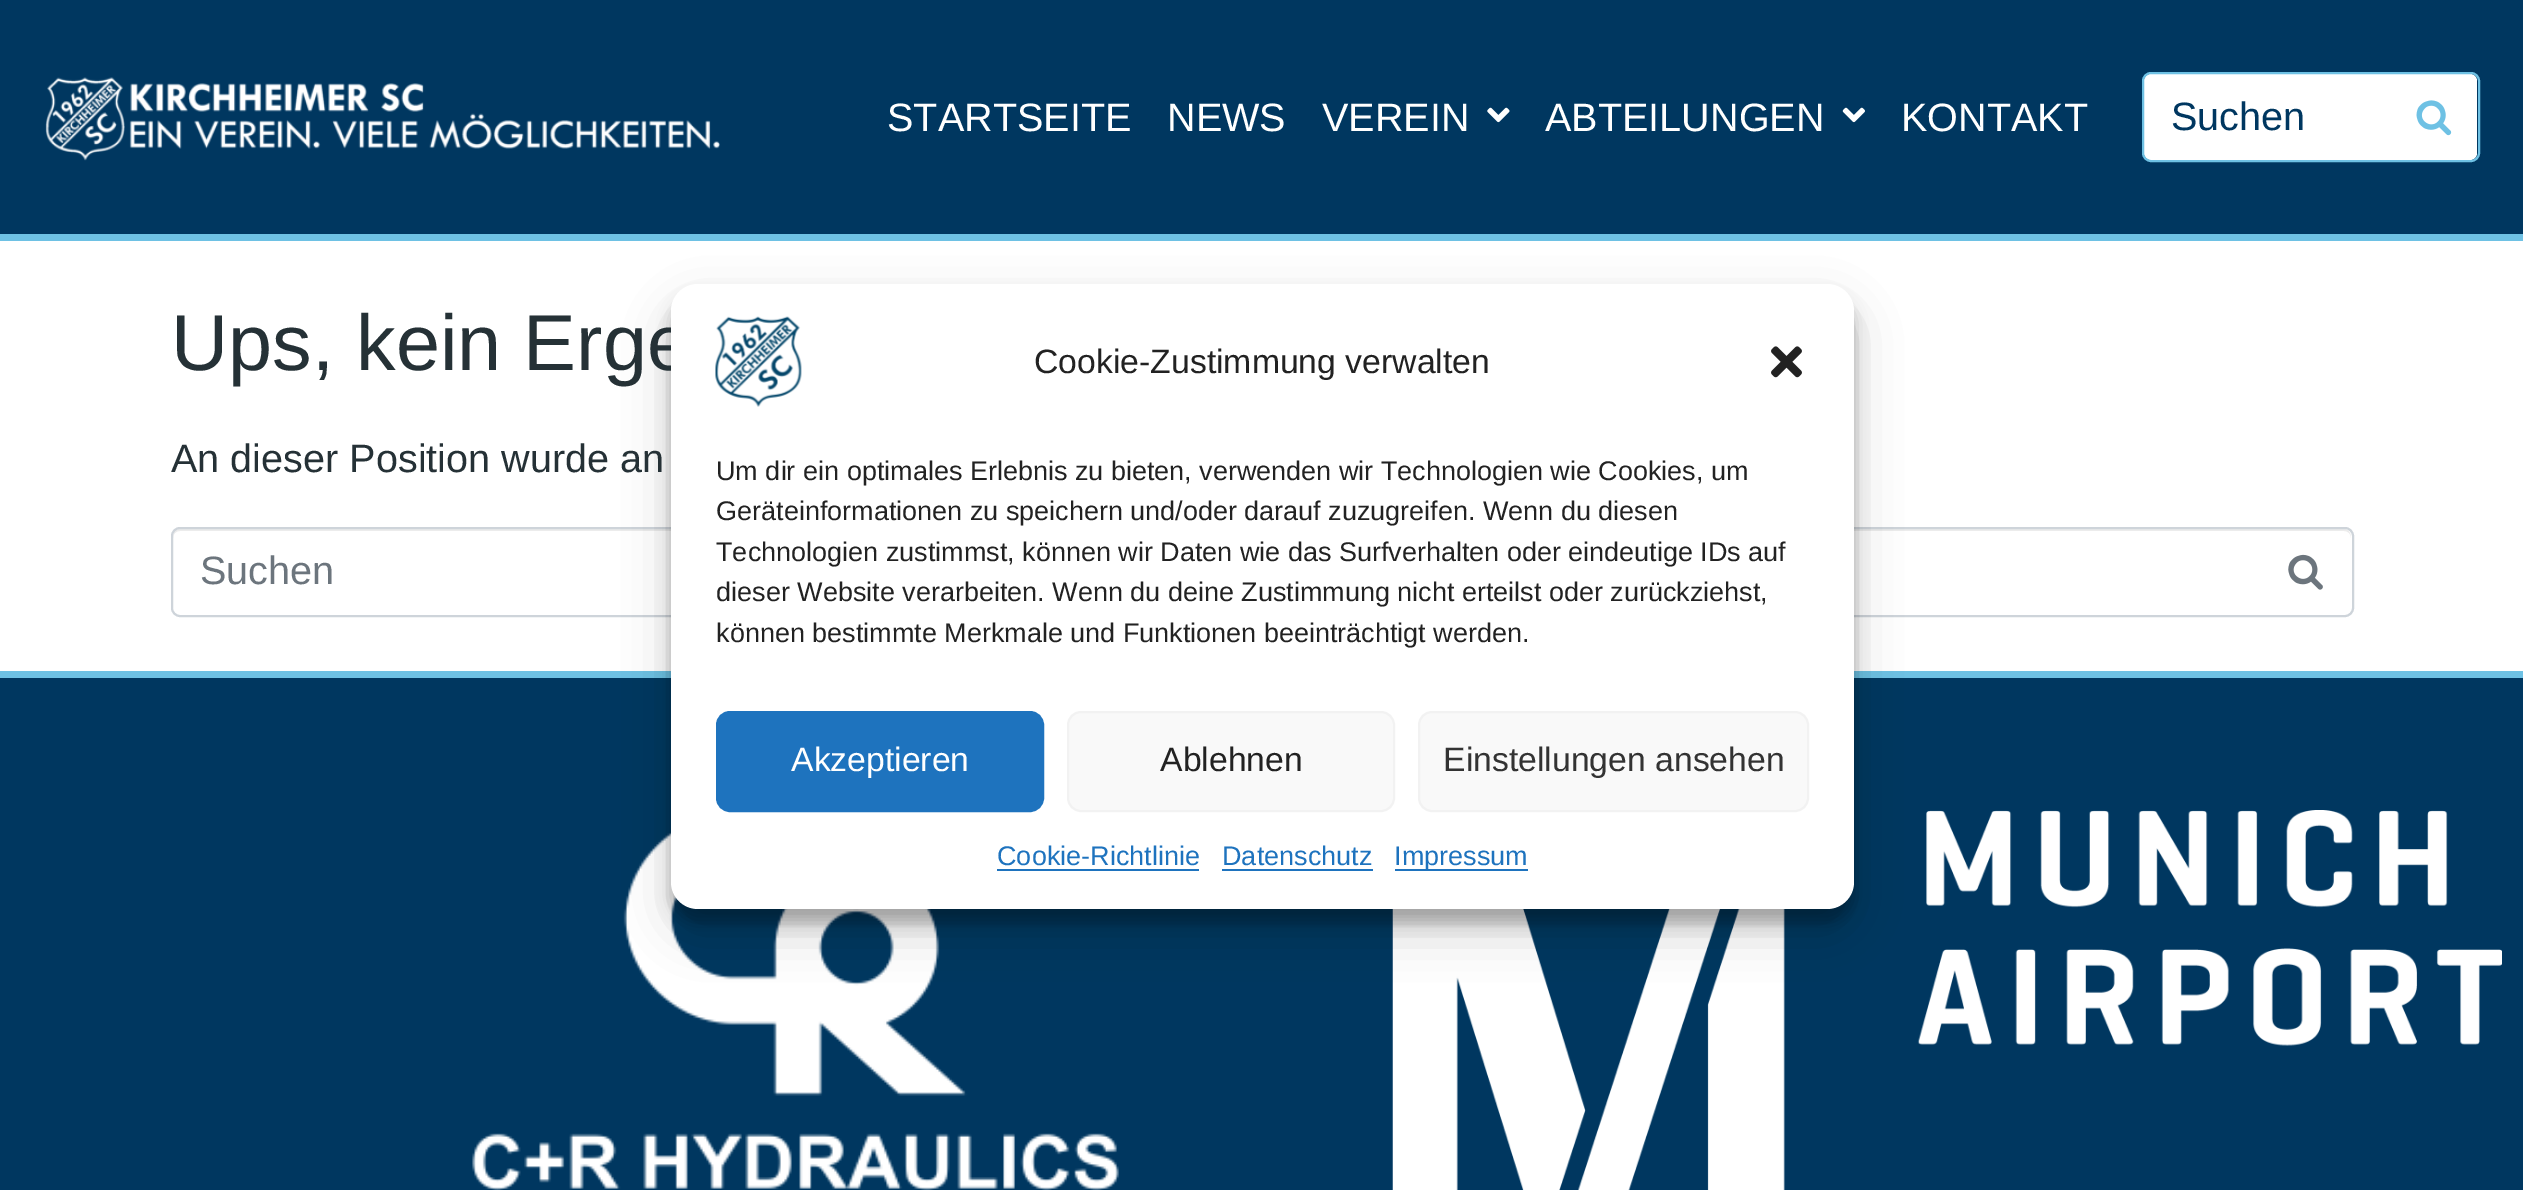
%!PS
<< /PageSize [2523 1190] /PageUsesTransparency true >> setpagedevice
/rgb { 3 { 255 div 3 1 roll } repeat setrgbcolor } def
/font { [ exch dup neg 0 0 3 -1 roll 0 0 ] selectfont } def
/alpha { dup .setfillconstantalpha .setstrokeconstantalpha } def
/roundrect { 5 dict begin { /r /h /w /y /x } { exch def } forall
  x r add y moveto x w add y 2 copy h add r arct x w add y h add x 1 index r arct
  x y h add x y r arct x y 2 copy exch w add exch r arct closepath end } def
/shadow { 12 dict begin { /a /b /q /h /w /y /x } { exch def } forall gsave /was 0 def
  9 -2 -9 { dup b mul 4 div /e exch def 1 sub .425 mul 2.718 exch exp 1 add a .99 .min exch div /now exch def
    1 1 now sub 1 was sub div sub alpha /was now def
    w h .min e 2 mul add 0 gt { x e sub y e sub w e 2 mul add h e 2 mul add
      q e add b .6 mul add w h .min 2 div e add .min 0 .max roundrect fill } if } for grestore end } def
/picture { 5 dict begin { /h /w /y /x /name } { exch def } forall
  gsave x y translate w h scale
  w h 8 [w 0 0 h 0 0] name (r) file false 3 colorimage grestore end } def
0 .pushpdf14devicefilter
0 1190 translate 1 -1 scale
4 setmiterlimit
255 255 255 rgb
0 0 2523 1190 rectfill
0 55 96 rgb
0 0 2523 234 rectfill
110 193 228 rgb
0 234 2523 7 rectfill
(img/1.rgb) 45 77 675 84 picture
(img/2.rgb) 1487 107 23 16 picture
(img/3.rgb) 1842 107 23 16 picture
255 255 255 rgb
2144 74 333 86 7 roundrect fill
110 193 228 rgb
2 setlinewidth
2143 73 336 88 8 roundrect stroke
(img/4.rgb) 2416 100 36 36 picture
236 236 236 rgb
180 531 moveto 2344 531 lineto 2348 531 2351 534 2351 538 curveto 2351 534 2349 529 2344 529 curveto 180 529 lineto 175 529 173 534 173 538 curveto 173 534 176 531 180 531 curveto closepath fill
206 212 218 rgb
172 528 2181 88 8 roundrect stroke
(img/5.rgb) 2288 554 35 36 picture
0 55 96 rgb
0 678 2523 512 rectfill
110 193 228 rgb
0 671 2523 7 rectfill
(img/6.rgb) 472 832 647 358 picture
(img/7.rgb) 1392 810 1110 380 picture
0 0 0 rgb
671 297 1183 626 27 7 0.23 shadow
671 306 1183 626 27 22.5 0.19 shadow
/LiberationSans-Regular 39.6 font
255 255 255 rgb
[
  [(STARTSEITE) 887 131]
  [(NEWS) 1167 131]
  [(VEREIN) 1322 131]
  [(ABTEILUNGEN) 1545 131]
  [(KONTAKT) 1901 131]
] { aload pop moveto show } forall
0 55 96 rgb
2171 130 moveto (Suchen) show
/LiberationSans-Regular 79.25 font
37 49 54 rgb
171 370 moveto (Ups, kein Erge) show
/LiberationSans-Regular 39.6 font
171 472 moveto (An dieser Position wurde an) show
108 117 125 rgb
200 584 moveto (Suchen) show
255 255 255 rgb
671 284 1183 625 27 roundrect fill
(img/8.rgb) 715 316 87 91 picture
/LiberationSans-Regular 33.75 font
34 34 34 rgb
1034 373 moveto (Cookie-Zustimmung verwalten) show
(img/9.rgb) 1771 346 31 32 picture
/LiberationSans-Regular 27 font
[
  [(Um dir ein optimales Erlebnis zu bieten, verwenden wir Technologien wie Cookies, um) 716 480]
  [(Geräteinformationen zu speichern und/oder darauf zuzugreifen. Wenn du diesen) 716 520]
  [(Technologien zustimmst, können wir Daten wie das Surfverhalten oder eindeutige IDs auf) 716 561]
  [(dieser Website verarbeiten. Wenn du deine Zustimmung nicht erteilst oder zurückziehst,) 716 601]
  [(können bestimmte Merkmale und Funktionen beeinträchtigt werden.) 716 642]
] { aload pop moveto show } forall
30 115 190 rgb
717 712 326 99 13 roundrect gsave fill grestore
stroke
/LiberationSans-Regular 33.75 font
255 255 255 rgb
791 771 moveto (Akzeptieren) show
249 249 249 rgb
1068 712 326 99 13 roundrect gsave fill grestore
242 242 242 rgb
stroke
34 34 34 rgb
1160 771 moveto (Ablehnen) show
249 249 249 rgb
1419 712 389 99 13 roundrect gsave fill grestore
242 242 242 rgb
stroke
51 51 51 rgb
1443 771 moveto (Einstellungen ansehen) show
/LiberationSans-Regular 27 font
30 115 190 rgb
997 865 moveto (Cookie-Richtlinie) show
997 869 202 2 rectfill
1222 865 moveto (Datenschutz) show
1222 869 151 2 rectfill
1395 869 133 2 rectfill
1394 865 moveto (Impressum) show
.poppdf14devicefilter showpage
